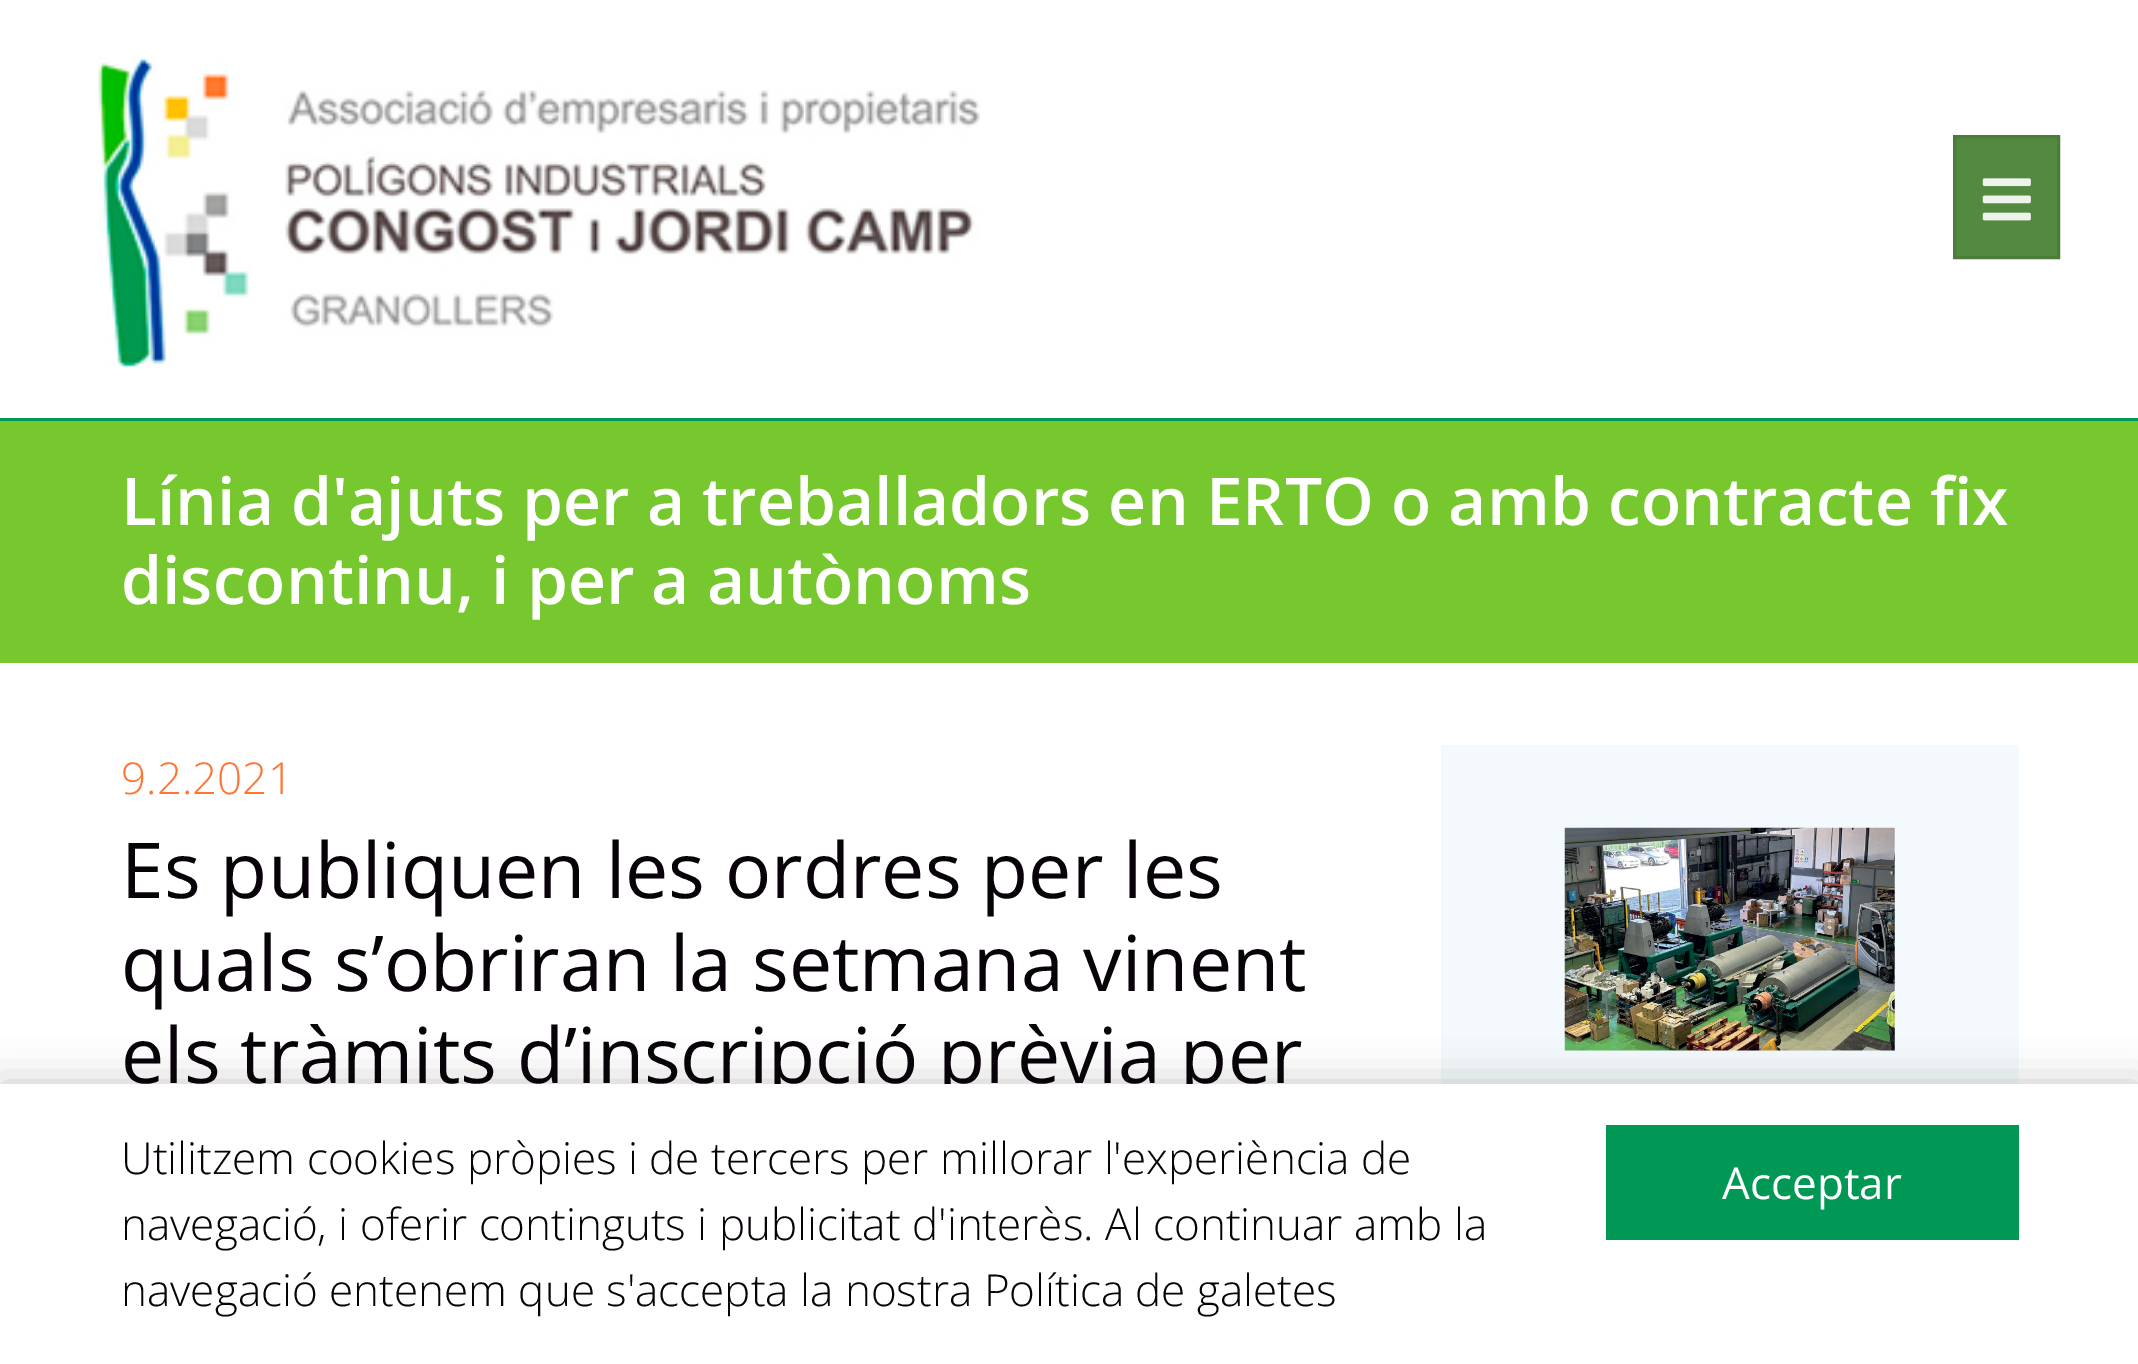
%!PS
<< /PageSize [2138 1364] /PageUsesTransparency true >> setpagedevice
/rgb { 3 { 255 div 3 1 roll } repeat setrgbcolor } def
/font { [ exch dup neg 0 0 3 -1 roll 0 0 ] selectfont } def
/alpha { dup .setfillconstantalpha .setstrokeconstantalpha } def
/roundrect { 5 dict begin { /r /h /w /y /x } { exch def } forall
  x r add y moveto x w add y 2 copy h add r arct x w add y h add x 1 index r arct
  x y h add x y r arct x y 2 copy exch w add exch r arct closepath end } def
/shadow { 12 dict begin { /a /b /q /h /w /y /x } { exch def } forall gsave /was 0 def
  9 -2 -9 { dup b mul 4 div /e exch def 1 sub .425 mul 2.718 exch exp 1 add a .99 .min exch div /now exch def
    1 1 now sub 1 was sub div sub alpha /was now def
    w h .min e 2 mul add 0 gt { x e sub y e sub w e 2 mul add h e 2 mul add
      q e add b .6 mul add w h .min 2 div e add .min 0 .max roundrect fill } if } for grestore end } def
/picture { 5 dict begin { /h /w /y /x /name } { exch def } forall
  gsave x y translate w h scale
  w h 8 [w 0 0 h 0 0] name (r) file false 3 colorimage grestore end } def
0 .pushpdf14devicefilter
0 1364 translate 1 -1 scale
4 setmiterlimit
255 255 255 rgb
0 0 2138 1364 rectfill
(img/1.rgb) 98 57 882 310 picture
83 138 63 rgb
1954.5 136.5 moveto 2058.5 136.5 lineto 2058.5 257.5 lineto 1954.5 257.5 lineto closepath gsave fill grestore
75 124 57 rgb
3 setlinewidth
stroke
(img/2.rgb) 1982 178 49 43 picture
[
  [0 418 2138 3 0 152 84]
  [0 421 2138 242 119 199 47]
  [1441 745 578 339 243 249 252]
] { aload pop rgb rectfill } forall
(img/3.rgb) 1564 827 331 224 picture
22 21 12 rgb
0 1084 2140 280 0 20.5 0.23 shadow
/OpenSans-SemiBold 66 font
255 255 255 rgb
121 525 moveto (Línia d'ajuts per a treballadors en ERTO o amb contracte fix) show
121 604 moveto (discontinu, i per a autònoms) show
/OpenSans-Light 44 font
254 117 51 rgb
121 794 moveto (9.2.2021) show
/OpenSans-Regular 77 font
8 3 9 rgb
[
  [(Es publiquen les ordres per les) 121 898]
  [(quals s’obriran la setmana vinent) 121 991]
  [(els tràmits d’inscripció prèvia per) 121 1083]
] { aload pop moveto show } forall
255 255 255 rgb
0 1084 2138 280 rectfill
/OpenSans-Light 44 font
8 3 9 rgb
[
  [(Utilitzem cookies pròpies i de tercers per millorar l'experiència de) 121 1174]
  [(navegació, i oferir continguts i publicitat d'interès. Al continuar amb la) 121 1240]
  [(navegació entenem que s'accepta la nostra Política de galetes) 121 1306]
] { aload pop moveto show } forall
0 152 84 rgb
1606 1125 413 115 rectfill
/OpenSans-Regular 44 font
255 255 255 rgb
1722 1199 moveto (Acceptar) show
.poppdf14devicefilter showpage
